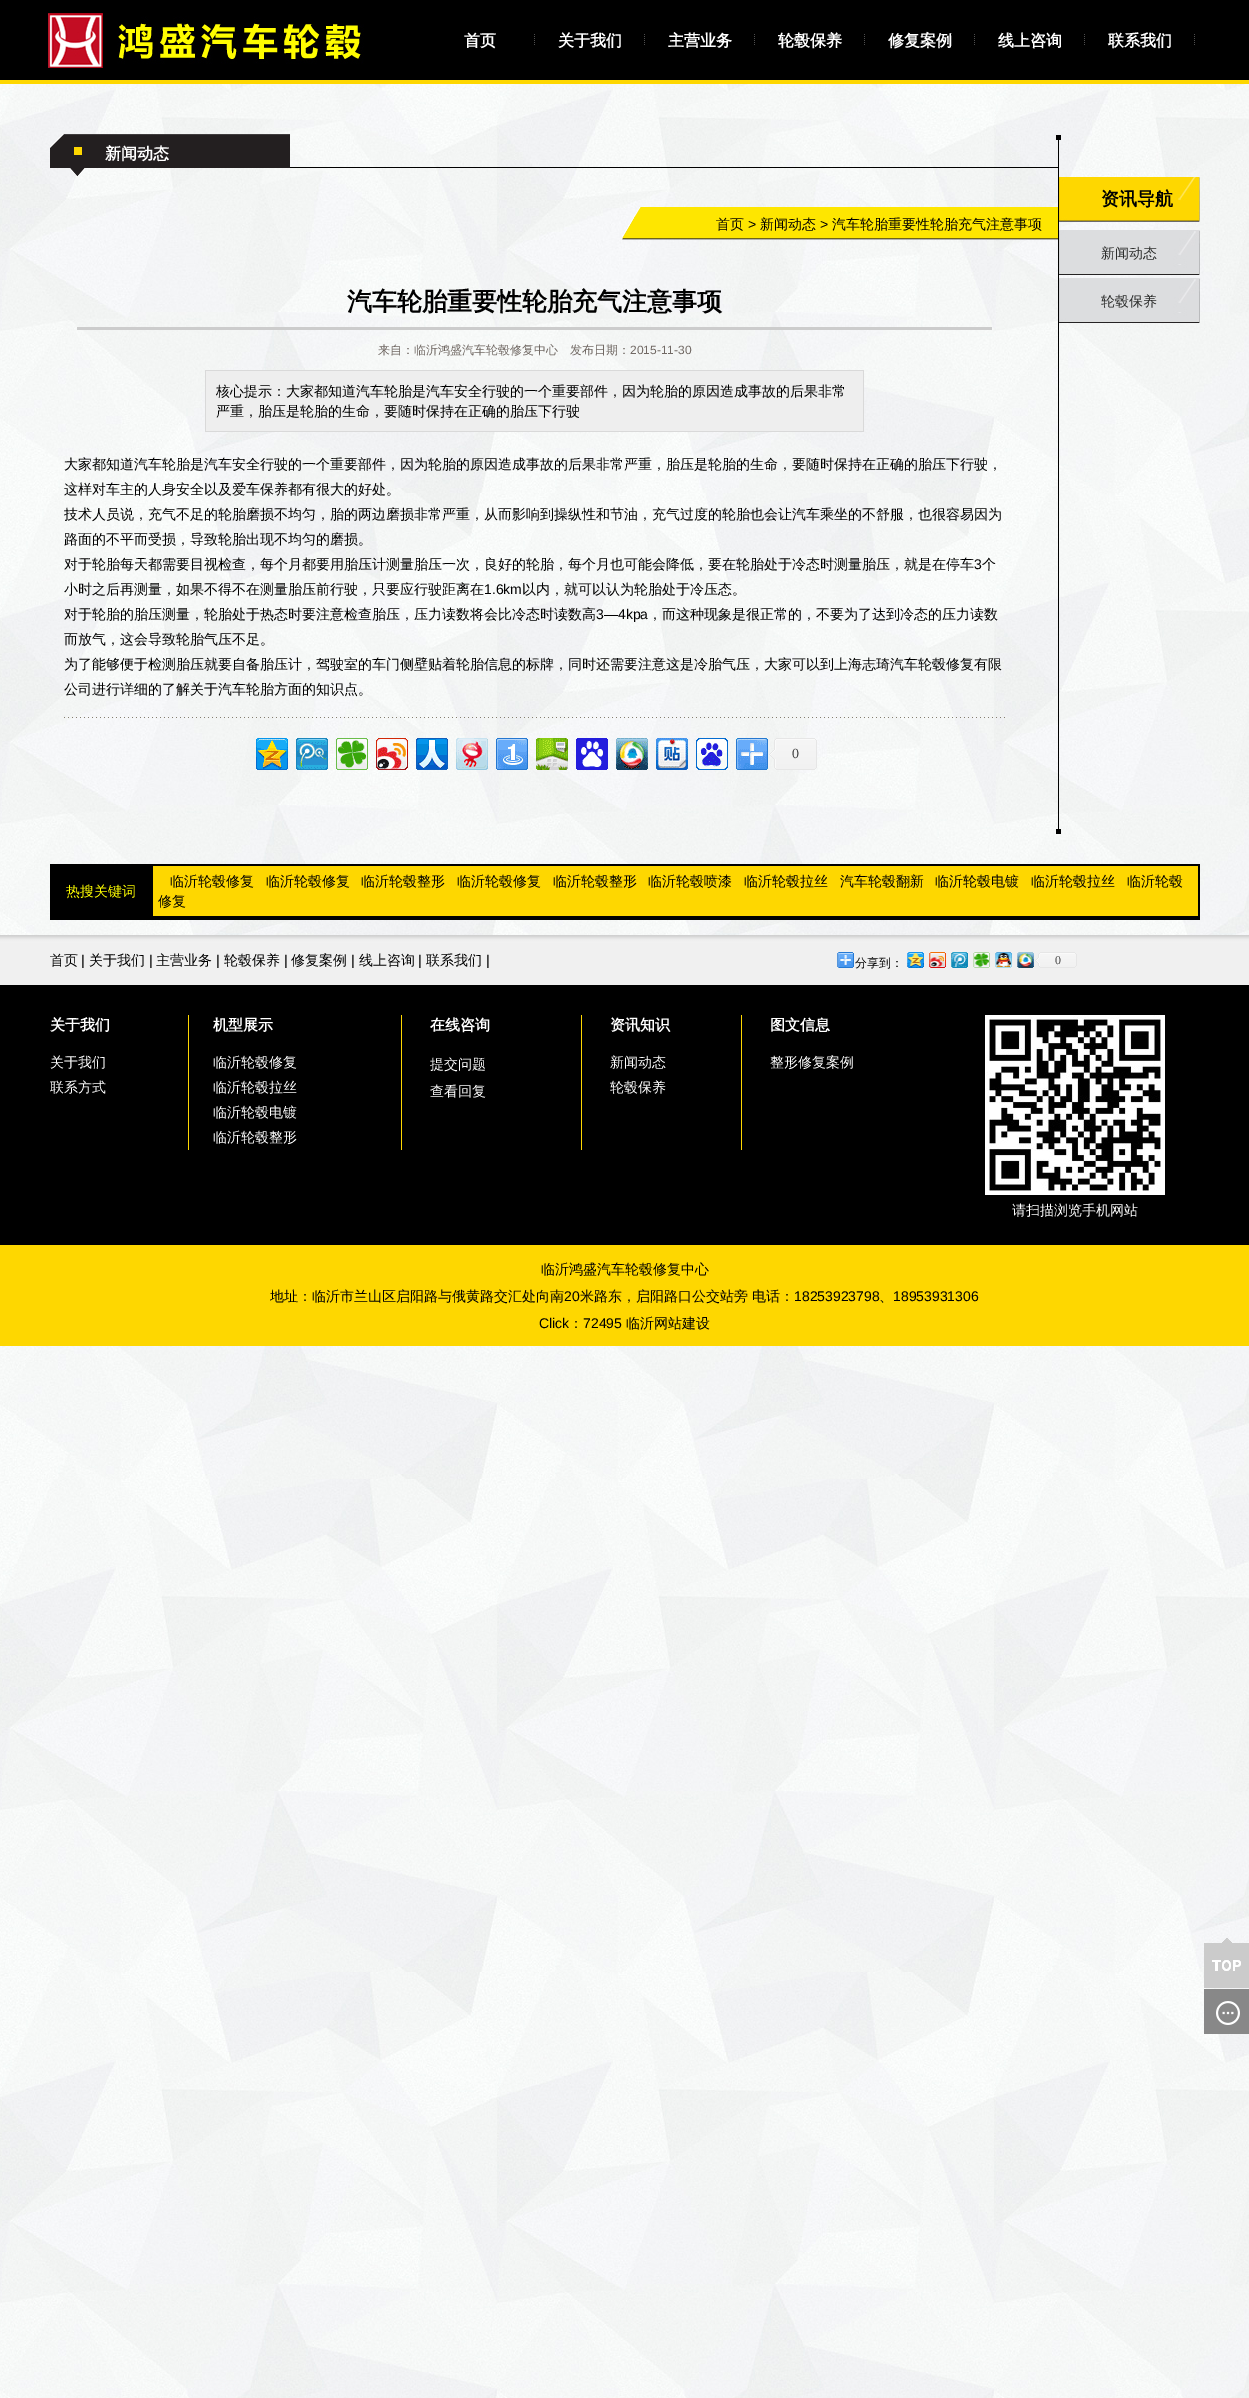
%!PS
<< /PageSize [1249 2398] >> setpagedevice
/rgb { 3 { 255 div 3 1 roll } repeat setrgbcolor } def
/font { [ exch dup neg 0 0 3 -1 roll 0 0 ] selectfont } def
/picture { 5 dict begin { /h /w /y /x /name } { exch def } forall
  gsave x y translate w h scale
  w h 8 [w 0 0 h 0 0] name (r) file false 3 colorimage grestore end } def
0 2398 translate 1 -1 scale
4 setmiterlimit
255 255 255 rgb
0 0 1249 2398 rectfill
(img/1.rgb) 0 84 1249 2314 picture
0 0 0 rgb
0 0 1249 80 rectfill
(img/2.rgb) 48 13 316 55 picture
(img/3.rgb) 534 34 1 11 picture
(img/3.rgb) 644 34 1 11 picture
(img/3.rgb) 754 34 1 11 picture
(img/3.rgb) 864 34 1 11 picture
(img/3.rgb) 974 34 1 11 picture
(img/3.rgb) 1084 34 1 11 picture
(img/3.rgb) 1194 34 1 11 picture
254 215 0 rgb
0 80 1249 4 rectfill
(img/4.rgb) 50 134 1011 43 picture
(img/5.rgb) 622 207 78 33 picture
(img/6.rgb) 700 207 358 33 picture
[
  [77 327 915 3 204 204 204]
  [205 370 659 62 217 217 217]
  [206 371 657 60 238 238 238]
] { aload pop rgb rectfill } forall
(img/7.rgb) 64 717 941 1 picture
(img/8.rgb) 256 738 32 32 picture
(img/9.rgb) 296 738 32 32 picture
(img/10.rgb) 336 738 32 32 picture
(img/11.rgb) 376 738 32 32 picture
(img/12.rgb) 416 738 32 32 picture
(img/13.rgb) 456 738 32 32 picture
(img/14.rgb) 496 738 32 32 picture
(img/15.rgb) 536 738 32 32 picture
(img/16.rgb) 576 738 32 32 picture
(img/17.rgb) 616 738 32 32 picture
(img/18.rgb) 656 738 32 32 picture
(img/19.rgb) 696 738 32 32 picture
(img/20.rgb) 736 738 32 32 picture
(img/21.rgb) 769 738 48 32 picture
0 0 0 rgb
1058 177 1 614 rectfill
(img/22.rgb) 1059 177 141 45 picture
(img/23.rgb) 1059 230 141 45 picture
(img/23.rgb) 1059 278 141 45 picture
(img/24.rgb) 1056 791 5 43 picture
50 864 1150 56 rectfill
254 215 0 rgb
153 866 1045 50 rectfill
(img/25.rgb) 0 935 1249 50 picture
(img/26.rgb) 837 952 17 16 picture
(img/27.rgb) 907 952 17 16 picture
(img/28.rgb) 929 952 17 16 picture
(img/29.rgb) 951 952 17 16 picture
(img/30.rgb) 973 952 17 16 picture
(img/31.rgb) 995 952 17 16 picture
(img/32.rgb) 1017 952 17 16 picture
(img/33.rgb) 1035 952 42 16 picture
[
  [0 985 1249 260 0 0 0]
  [188 1015 1 135 254 215 0]
  [401 1015 1 135 254 215 0]
  [581 1015 1 135 254 215 0]
  [741 1015 1 135 254 215 0]
] { aload pop rgb rectfill } forall
(img/34.rgb) 985 1015 180 180 picture
0 1245 1249 101 rectfill
(img/35.rgb) 1204 1938 45 50 picture
(img/36.rgb) 1204 1989 45 45 picture
/WenQuanYiZenHei-Bold 16 font
255 255 255 rgb
[
  [(首页) 464 46]
  [(关于我们) 558 46]
  [(主营业务) 668 46]
  [(轮毂保养) 778 46]
  [(修复案例) 888 46]
  [(线上咨询) 998 46]
  [(联系我们) 1108 46]
  [(新闻动态) 105 159]
] { aload pop moveto show } forall
/WenQuanYiZenHei-Medium 14 font
0 0 0 rgb
716 229 moveto (首页) show
/LiberationSans-Regular 14 font
748 229 moveto (>) show
/WenQuanYiZenHei-Medium 14 font
760 229 moveto (新闻动态) show
/LiberationSans-Regular 14 font
820 229 moveto (>) show
/WenQuanYiZenHei-Medium 14 font
832 229 moveto (汽车轮胎重要性轮胎充气注意事项) show
/WenQuanYiZenHei-Bold 25 font
347 310 moveto (汽车轮胎重要性轮胎充气注意事项) show
/WenQuanYiZenHei-Medium 12 font
113 105 100 rgb
378 354 moveto (来自：临沂鸿盛汽车轮毂修复中心　发布日期：) show
/LiberationSans-Regular 12 font
630 354 moveto (2015-11-30) show
/WenQuanYiZenHei-Medium 14 font
0 0 0 rgb
[
  [(核心提示：大家都知道汽车轮胎是汽车安全行驶的一个重要部件，因为轮胎的原因造成事故的后果非常) 216 396]
  [(严重，胎压是轮胎的生命，要随时保持在正确的胎压下行驶) 216 416]
  [(大家都知道汽车轮胎是汽车安全行驶的一个重要部件，因为轮胎的原因造成事故的后果非常严重，胎压是轮胎的生命，要随时保持在正确的胎压下行驶，) 64 469]
  [(这样对车主的人身安全以及爱车保养都有很大的好处。) 64 494]
  [(技术人员说，充气不足的轮胎磨损不均匀，胎的两边磨损非常严重，从而影响到操纵性和节油，充气过度的轮胎也会让汽车乘坐的不舒服，也很容易因为) 64 519]
  [(路面的不平而受损，导致轮胎出现不均匀的磨损。) 64 544]
  [(对于轮胎每天都需要目视检查，每个月都要用胎压计测量胎压一次，良好的轮胎，每个月也可能会降低，要在轮胎处于冷态时测量胎压，就是在停车) 64 569]
] { aload pop moveto show } forall
/LiberationSans-Regular 14 font
974 569 moveto (3) show
/WenQuanYiZenHei-Medium 14 font
982 569 moveto (个) show
64 594 moveto (小时之后再测量，如果不得不在测量胎压前行驶，只要应行驶距离在) show
/LiberationSans-Regular 14 font
484 594 moveto (1.6km) show
/WenQuanYiZenHei-Medium 14 font
522 594 moveto (以内，就可以认为轮胎处于冷压态。) show
64 619 moveto (对于轮胎的胎压测量，轮胎处于热态时要注意检查胎压，压力读数将会比冷态时读数高) show
/LiberationSans-Regular 14 font
596 619 moveto (3—4kpa) show
/WenQuanYiZenHei-Medium 14 font
[
  [(，而这种现象是很正常的，不要为了达到冷态的压力读数) 648 619]
  [(而放气，这会导致轮胎气压不足。) 64 644]
  [(为了能够便于检测胎压就要自备胎压计，驾驶室的车门侧壁贴着轮胎信息的标牌，同时还需要注意这是冷胎气压，大家可以到上海志琦汽车轮毂修复有限) 64 669]
  [(公司进行详细的了解关于汽车轮胎方面的知识点。) 64 694]
] { aload pop moveto show } forall
/LiberationSerif-Regular 14 font
69 69 69 rgb
792 758 moveto (0) show
/WenQuanYiZenHei-Bold 18 font
0 0 0 rgb
1101 205 moveto (资讯导航) show
/WenQuanYiZenHei-Medium 14 font
44 45 44 rgb
1101 258 moveto (新闻动态) show
1101 306 moveto (轮毂保养) show
255 255 0 rgb
66 896 moveto (热搜关键词) show
0 0 0 rgb
[
  [(临沂轮毂修复) 170 886]
  [(临沂轮毂修复) 266 886]
  [(临沂轮毂整形) 361 886]
  [(临沂轮毂修复) 457 886]
  [(临沂轮毂整形) 553 886]
  [(临沂轮毂喷漆) 648 886]
  [(临沂轮毂拉丝) 744 886]
  [(汽车轮毂翻新) 840 886]
  [(临沂轮毂电镀) 935 886]
  [(临沂轮毂拉丝) 1031 886]
  [(临沂轮毂) 1127 886]
  [(修复) 158 906]
  [(首页) 50 965]
] { aload pop moveto show } forall
/LiberationSans-Regular 14 font
81 965 moveto (|) show
/WenQuanYiZenHei-Medium 14 font
89 965 moveto (关于我们) show
/LiberationSans-Regular 14 font
149 965 moveto (|) show
/WenQuanYiZenHei-Medium 14 font
156 965 moveto (主营业务) show
/LiberationSans-Regular 14 font
216 965 moveto (|) show
/WenQuanYiZenHei-Medium 14 font
224 965 moveto (轮毂保养) show
/LiberationSans-Regular 14 font
284 965 moveto (|) show
/WenQuanYiZenHei-Medium 14 font
291 965 moveto (修复案例) show
/LiberationSans-Regular 14 font
351 965 moveto (|) show
/WenQuanYiZenHei-Medium 14 font
359 965 moveto (线上咨询) show
/LiberationSans-Regular 14 font
418 965 moveto (|) show
/WenQuanYiZenHei-Medium 14 font
426 965 moveto (联系我们) show
/LiberationSans-Regular 14 font
486 965 moveto (|) show
/WenQuanYiZenHei-Medium 12 font
855 967 moveto (分享到：) show
/LiberationSerif-Regular 12 font
69 69 69 rgb
1055 964 moveto (0) show
/WenQuanYiZenHei-Bold 15 font
255 255 255 rgb
50 1030 moveto (关于我们) show
/WenQuanYiZenHei-Medium 14 font
50 1067 moveto (关于我们) show
50 1092 moveto (联系方式) show
/WenQuanYiZenHei-Bold 15 font
213 1030 moveto (机型展示) show
/WenQuanYiZenHei-Medium 14 font
[
  [(临沂轮毂修复) 213 1067]
  [(临沂轮毂拉丝) 213 1092]
  [(临沂轮毂电镀) 213 1117]
  [(临沂轮毂整形) 213 1142]
] { aload pop moveto show } forall
/WenQuanYiZenHei-Bold 15 font
430 1030 moveto (在线咨询) show
/WenQuanYiZenHei-Medium 14 font
430 1069 moveto (提交问题) show
430 1096 moveto (查看回复) show
/WenQuanYiZenHei-Bold 15 font
610 1030 moveto (资讯知识) show
/WenQuanYiZenHei-Medium 14 font
610 1067 moveto (新闻动态) show
610 1092 moveto (轮毂保养) show
/WenQuanYiZenHei-Bold 15 font
770 1030 moveto (图文信息) show
/WenQuanYiZenHei-Medium 14 font
770 1067 moveto (整形修复案例) show
1012 1215 moveto (请扫描浏览手机网站) show
0 0 0 rgb
541 1274 moveto (临沂鸿盛汽车轮毂修复中心) show
270 1301 moveto (地址：临沂市兰山区启阳路与俄黄路交汇处向南) show
/LiberationSans-Regular 14 font
564 1301 moveto (20) show
/WenQuanYiZenHei-Medium 14 font
580 1301 moveto (米路东，启阳路口公交站旁) show
752 1301 moveto (电话：) show
/LiberationSans-Regular 14 font
794 1301 moveto (18253923798) show
/WenQuanYiZenHei-Medium 14 font
879 1301 moveto (、) show
/LiberationSans-Regular 14 font
893 1301 moveto (18953931306) show
539 1328 moveto (Click) show
/WenQuanYiZenHei-Medium 14 font
569 1328 moveto (：) show
/LiberationSans-Regular 14 font
583 1328 moveto (72495) show
/WenQuanYiZenHei-Medium 14 font
626 1328 moveto (临沂网站建设) show
showpage
